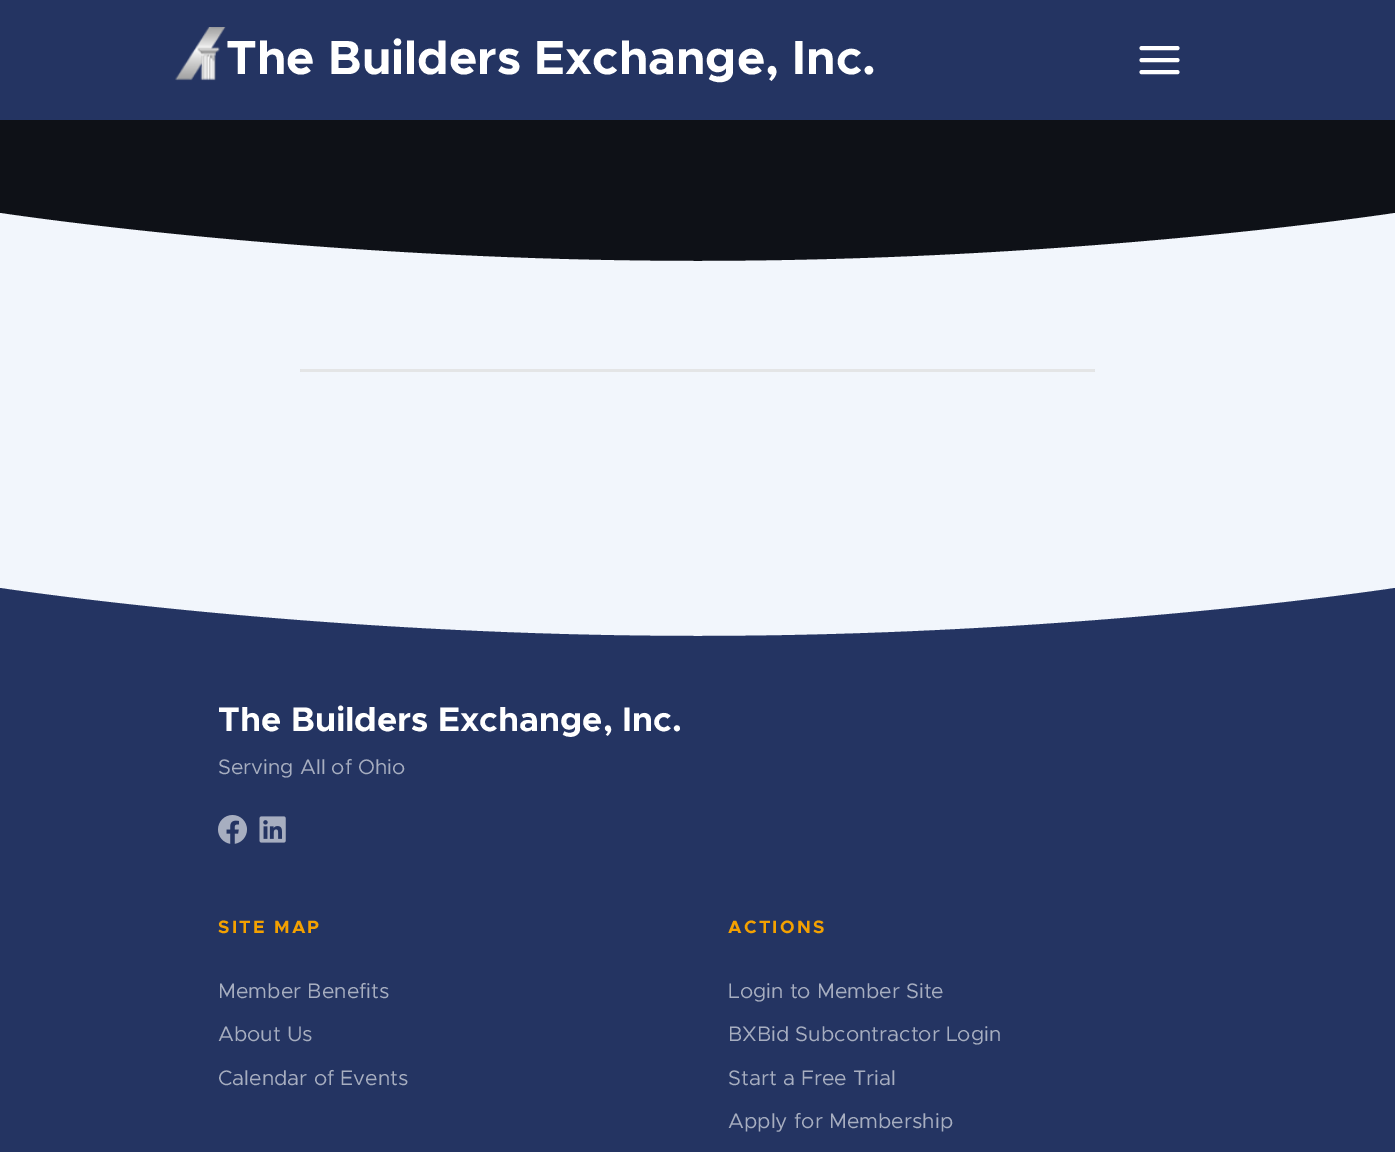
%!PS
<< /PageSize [1395 1152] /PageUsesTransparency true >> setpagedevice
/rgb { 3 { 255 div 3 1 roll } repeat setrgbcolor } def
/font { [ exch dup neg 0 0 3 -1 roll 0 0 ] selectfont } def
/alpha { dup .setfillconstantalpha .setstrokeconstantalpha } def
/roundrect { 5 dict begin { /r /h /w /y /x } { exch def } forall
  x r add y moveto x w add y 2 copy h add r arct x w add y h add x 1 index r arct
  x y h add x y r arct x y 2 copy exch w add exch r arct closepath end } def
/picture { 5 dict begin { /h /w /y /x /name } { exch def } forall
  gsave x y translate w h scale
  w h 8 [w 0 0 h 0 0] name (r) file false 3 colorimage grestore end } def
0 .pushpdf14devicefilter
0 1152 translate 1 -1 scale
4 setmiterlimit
242 246 252 rgb
0 0 1395 1152 rectfill
36 52 98 rgb
0 0 1395 120 rectfill
(img/1.rgb) 175 27 51 54 picture
255 255 255 rgb
4 setlinewidth
1 setlinecap
1 setlinejoin
1141.5 60 moveto 1177.5 60 lineto 1141.5 48 moveto 1177.5 48 lineto 1141.5 72 moveto 1177.5 72 lineto stroke
14 17 23 rgb
0 120 1395 141 rectfill
242 246 252 rgb
1395 261 moveto 0 261 lineto 0 213 lineto 1395 213 lineto closepath 0 213 moveto 0 213 312 261 698 261 curveto 1083 261 1395 213 1395 213 curveto fill
255 255 255 rgb
300 369 795 3 1.5 roundrect fill
0.12 alpha
33 40 50 rgb
300 369 795 3 rectfill
1 alpha
36 52 98 rgb
1395 636 moveto 0 636 lineto 0 588 lineto 1395 588 lineto closepath 0 588 moveto 0 588 312 636 698 636 curveto 1083 636 1395 588 1395 588 curveto fill
0 636 1395 516 rectfill
(img/2.rgb) 218 815 29 29 picture
(img/3.rgb) 259 816 27 27 picture
/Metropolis-Bold 48 font
255 255 255 rgb
226 74 moveto (The Builders Exchange, Inc.) show
/Metropolis-Bold 34.25 font
218 731 moveto (The Builders Exchange, Inc.) show
/Metropolis-Regular 21 font
167 174 192 rgb
218 774 moveto (Serving All of Ohio) show
/Metropolis-Bold 18 font
244 161 0 rgb
218 933 moveto 2.25 0 (SITE MAP) ashow
/Metropolis-Regular 21 font
167 174 192 rgb
[
  [(Member Benefits) 218 998]
  [(About Us) 218 1041]
  [(Calendar of Events) 218 1085]
] { aload pop moveto show } forall
/Metropolis-Bold 18 font
244 161 0 rgb
728 933 moveto 2.25 0 (ACTIONS) ashow
/Metropolis-Regular 21 font
167 174 192 rgb
[
  [(Login to Member Site) 728 998]
  [(BXBid Subcontractor Login) 728 1041]
  [(Start a Free Trial) 728 1085]
  [(Apply for Membership) 728 1128]
] { aload pop moveto show } forall
.poppdf14devicefilter showpage
